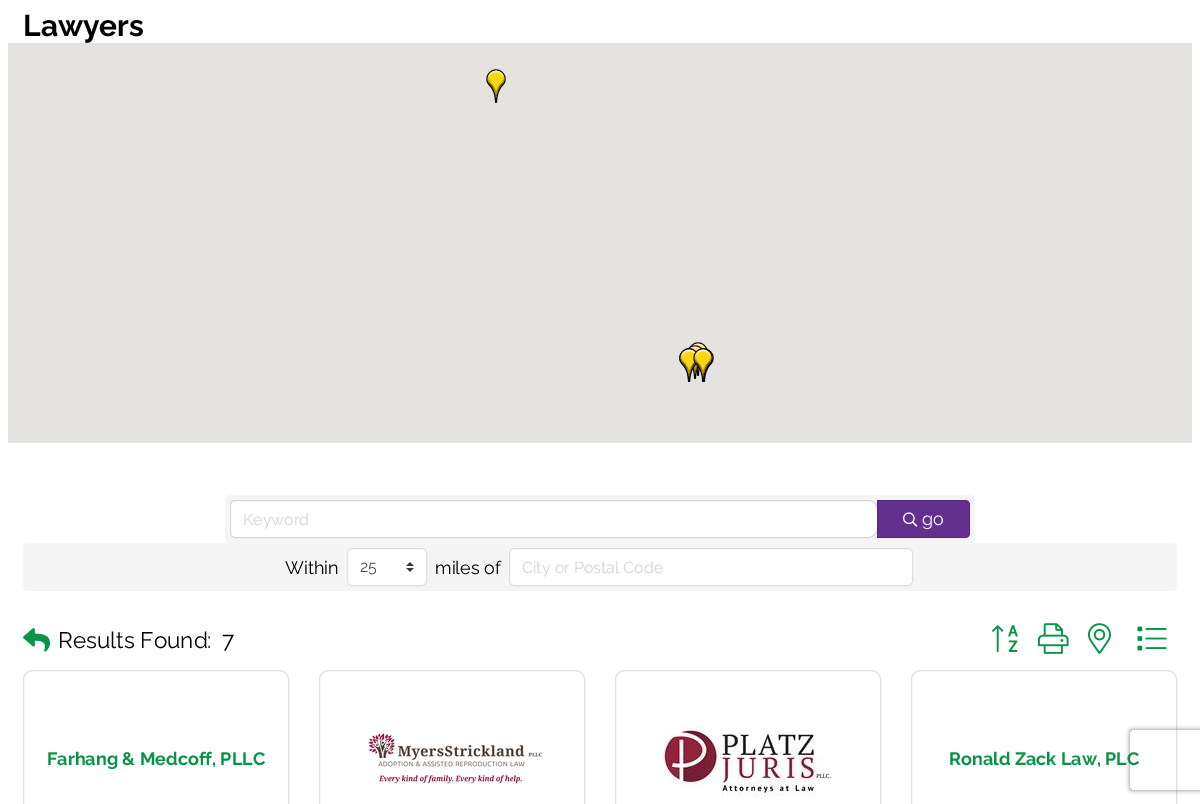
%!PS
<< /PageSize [1200 804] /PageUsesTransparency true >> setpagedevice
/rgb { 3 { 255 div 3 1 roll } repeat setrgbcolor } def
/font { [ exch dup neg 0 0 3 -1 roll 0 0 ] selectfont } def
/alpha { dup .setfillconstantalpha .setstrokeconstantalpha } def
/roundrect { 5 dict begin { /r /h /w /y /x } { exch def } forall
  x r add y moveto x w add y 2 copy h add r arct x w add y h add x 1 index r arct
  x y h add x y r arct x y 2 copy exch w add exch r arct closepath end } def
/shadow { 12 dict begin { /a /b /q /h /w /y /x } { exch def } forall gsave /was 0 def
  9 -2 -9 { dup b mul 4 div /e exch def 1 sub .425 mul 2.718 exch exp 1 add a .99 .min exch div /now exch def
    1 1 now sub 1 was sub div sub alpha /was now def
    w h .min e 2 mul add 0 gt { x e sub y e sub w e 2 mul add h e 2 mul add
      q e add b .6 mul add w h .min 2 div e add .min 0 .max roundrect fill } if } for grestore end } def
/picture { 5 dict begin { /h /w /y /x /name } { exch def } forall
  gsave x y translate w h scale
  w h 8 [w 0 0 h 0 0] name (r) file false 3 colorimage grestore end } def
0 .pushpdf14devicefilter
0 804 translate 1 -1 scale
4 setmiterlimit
255 255 255 rgb
0 0 1200 804 rectfill
229 227 223 rgb
8 43 1184 400 rectfill
(img/1.rgb) 486 69 20 34 picture
(img/1.rgb) 688 342 20 34 picture
(img/2.rgb) 687 345 16 34 picture
(img/6.rgb) 696 348 18 34 picture
(img/3.rgb) 679 348 18 34 picture
(img/4.rgb) 679 348 18 34 picture
(img/5.rgb) 693 348 20 34 picture
245 245 245 rgb
225 495 750 48 5 roundrect fill
255 255 255 rgb
235 501 moveto 868 501 lineto 873 501 877 505 877 510 curveto 877 528 lineto 877 533 873 537 868 537 curveto 235 537 lineto 233 537 231 535 231 533 curveto 231 505 lineto 231 503 233 501 235 501 curveto closepath fill
0.12 alpha
0 0 0 rgb
235 500.5 moveto 868 500.5 lineto 873 500.5 877.5 505 877.5 510 curveto 877.5 528 lineto 877.5 533 873 537.5 868 537.5 curveto 235 537.5 lineto 232.5 537.5 230.5 535.5 230.5 533 curveto 230.5 505 lineto 230.5 502.5 232.5 500.5 235 500.5 curveto closepath stroke
1 alpha
100 48 143 rgb
877 500 moveto 965 500 lineto 968 500 970 502 970 505 curveto 970 533 lineto 970 536 968 538 965 538 curveto 877 538 lineto closepath fill
0.12 alpha
0 0 0 rgb
877.5 500.5 moveto 965 500.5 lineto 967.5 500.5 969.5 502.5 969.5 505 curveto 969.5 533 lineto 969.5 535.5 967.5 537.5 965 537.5 curveto 877.5 537.5 lineto closepath stroke
1 alpha
(img/7.rgb) 903 512 15 15 picture
245 245 245 rgb
23 543 1154 48 5 roundrect fill
255 255 255 rgb
347 548 80 38 5 roundrect fill
(img/8.rgb) 406 562 8 10 picture
0.12 alpha
0 0 0 rgb
347.5 548.5 79 37 4.5 roundrect stroke
1 alpha
255 255 255 rgb
509 548 404 38 5 roundrect fill
0.12 alpha
0 0 0 rgb
509.5 548.5 403 37 4.5 roundrect stroke
1 alpha
(img/9.rgb) 23 628 28 24 picture
(img/10.rgb) 992 625 26 27 picture
(img/11.rgb) 1038 623 31 31 picture
(img/12.rgb) 1088 623 23 31 picture
(img/13.rgb) 1137 626 30 25 picture
223 223 223 rgb
23.5 670.5 265 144 9.5 roundrect stroke
319.5 670.5 265 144 9.5 roundrect stroke
(img/14.rgb) 367 730 177 54 picture
615.5 670.5 265 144 9.5 roundrect stroke
(img/15.rgb) 663 725 169 72 picture
911.5 670.5 265 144 9.5 roundrect stroke
gsave
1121 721 moveto 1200 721 lineto 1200 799 lineto 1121 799 lineto closepath 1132 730 moveto 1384 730 lineto 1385 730 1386 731 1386 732 curveto 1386 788 lineto 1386 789 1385 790 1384 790 curveto 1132 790 lineto 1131 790 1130 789 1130 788 curveto 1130 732 lineto 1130 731 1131 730 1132 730 curveto closepath eoclip newpath
128 128 128 rgb
1130 730 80 60 2 2.5 1 shadow
grestore
/Raleway-Bold 30 font
0 0 0 rgb
23 36 moveto (Lawyers) show
/Raleway-Regular 16 font
210 210 210 rgb
243 525 moveto (Keyword) show
/Raleway-Regular 18 font
255 255 255 rgb
922 525 moveto (go) show
0 0 0 rgb
285 574 moveto (Within) show
/Raleway-Regular 16 font
73 80 87 rgb
360 572 moveto (25) show
/Raleway-Regular 18 font
0 0 0 rgb
435 574 moveto (miles of) show
/Raleway-Regular 16 font
210 210 210 rgb
522 573 moveto (City or Postal Code) show
/Raleway-Regular 22.5 font
0 0 0 rgb
58 648 moveto (Results Found:) show
222 648 moveto (7) show
/Raleway-Bold 18 font
8 148 71 rgb
47 765 moveto (Farhang & Medcoff, PLLC) show
949 765 moveto (Ronald Zack Law, PLC) show
.poppdf14devicefilter showpage
